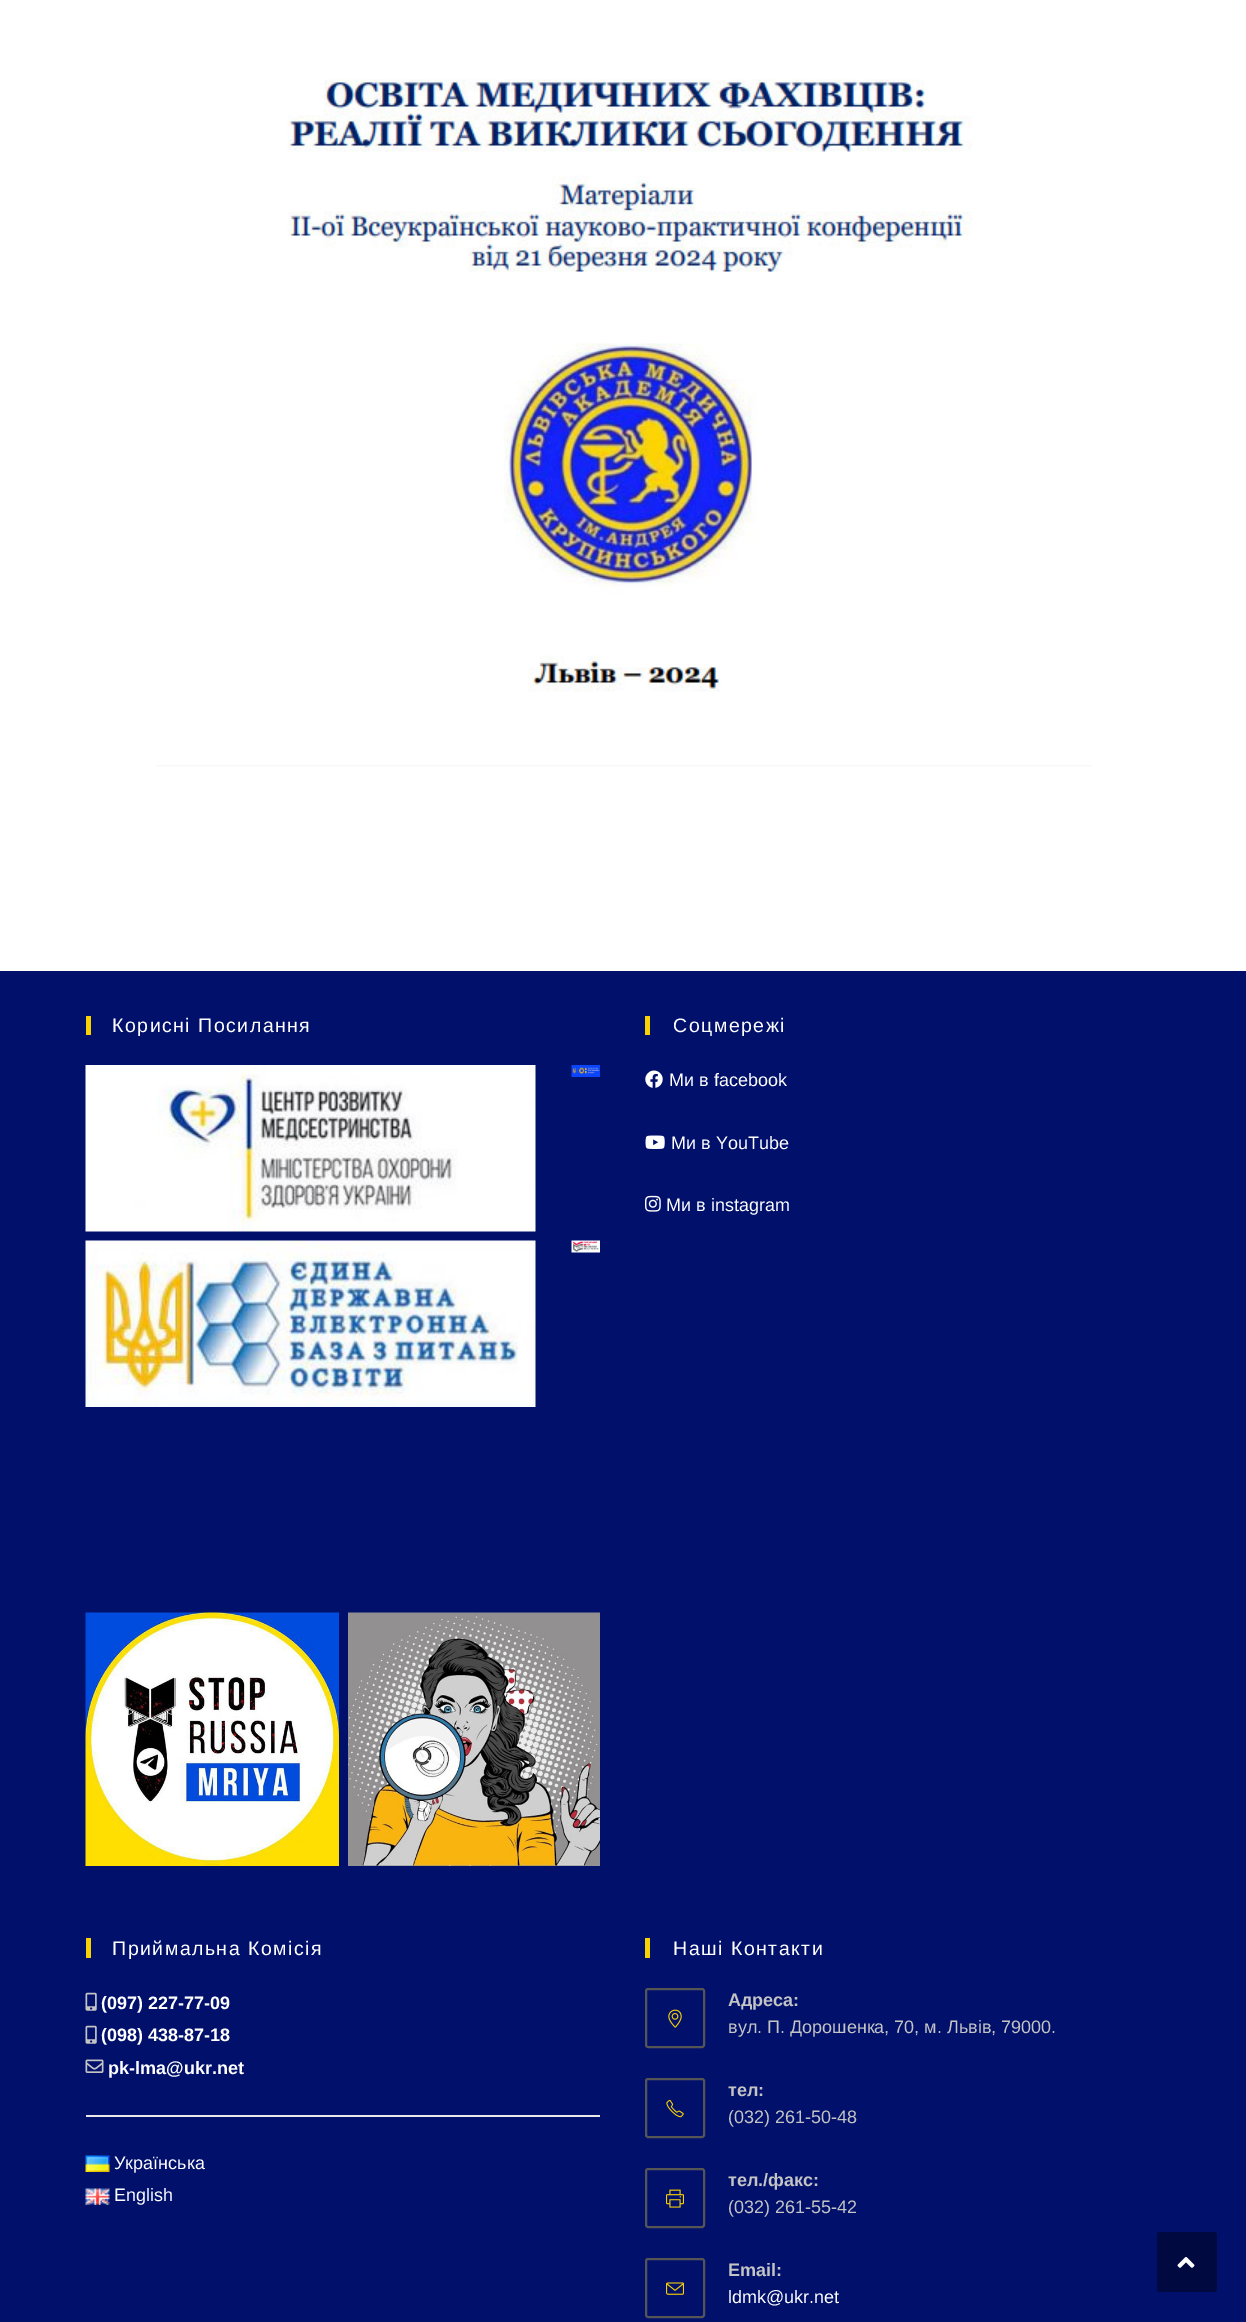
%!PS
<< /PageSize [1246 2322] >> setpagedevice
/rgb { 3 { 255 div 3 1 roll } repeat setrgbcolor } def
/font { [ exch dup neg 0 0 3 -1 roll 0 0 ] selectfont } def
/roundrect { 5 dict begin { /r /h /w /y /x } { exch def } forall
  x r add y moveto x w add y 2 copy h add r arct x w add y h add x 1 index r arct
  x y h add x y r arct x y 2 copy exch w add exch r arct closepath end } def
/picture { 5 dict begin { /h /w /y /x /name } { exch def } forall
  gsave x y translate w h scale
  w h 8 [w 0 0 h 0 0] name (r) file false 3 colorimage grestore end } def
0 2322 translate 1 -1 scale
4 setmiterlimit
255 255 255 rgb
0 0 1246 2322 rectfill
(img/1.rgb) 156 79 936 688 picture
0 16 107 rgb
0 971 1246 1351 rectfill
249 209 5 rgb
86 1016 5 19 rectfill
(img/2.rgb) 85 1065 451 167 picture
(img/3.rgb) 571 1065 29 12 picture
(img/4.rgb) 85 1240 451 167 picture
(img/5.rgb) 571 1240 29 13 picture
(img/6.rgb) 85 1612 254 254 picture
(img/7.rgb) 348 1612 252 254 picture
645 1016 5 19 rectfill
(img/8.rgb) 645 1070 18 18 picture
(img/9.rgb) 645 1135 20 14 picture
(img/10.rgb) 645 1195 16 17 picture
86 1938 5 20 rectfill
(img/11.rgb) 85 1992 12 19 picture
(img/11.rgb) 85 2025 12 19 picture
(img/12.rgb) 85 2059 19 14 picture
233 233 233 rgb
86 2115 514 2 rectfill
(img/13.rgb) 85 2155 25 17 picture
(img/14.rgb) 85 2188 25 17 picture
249 209 5 rgb
645 1938 5 20 rectfill
85 85 85 rgb
2 setlinewidth
646 1989 58 58 2 roundrect stroke
(img/15.rgb) 668 2009 14 19 picture
646 2079 58 58 2 roundrect stroke
(img/16.rgb) 666 2099 18 19 picture
646 2169 58 58 2 roundrect stroke
(img/17.rgb) 666 2189 18 19 picture
646 2259 58 58 2 roundrect stroke
(img/18.rgb) 666 2282 18 13 picture
0 10 64 rgb
1157 2232 60 60 3 roundrect fill
(img/19.rgb) 1177 2257 18 11 picture
/LiberationSans-Regular 19.5 font
255 255 255 rgb
112 1032 moveto 1.5 0 (Корисні Посилання) ashow
673 1032 moveto 1.5 0 (Соцмережі) ashow
/LiberationSans-Regular 18 font
[
  [(Ми в facebook) 669 1086]
  [(Ми в YouTube) 671 1149]
  [(Ми в instagram) 666 1211]
] { aload pop moveto show } forall
/LiberationSans-Regular 19.5 font
112 1955 moveto 1.5 0 (Приймальна Комісія) ashow
/LiberationSans-Bold 18 font
[
  [(\(097\) 227-77-09) 101 2009]
  [(\(098\) 438-87-18) 101 2041]
  [(pk-lma@ukr.net) 108 2074]
] { aload pop moveto show } forall
/LiberationSans-Regular 18 font
114 2169 moveto (Українська) show
114 2201 moveto (English) show
/LiberationSans-Regular 19.5 font
673 1955 moveto 1.5 0 (Наші Контакти) ashow
/LiberationSans-Bold 18 font
196 196 196 rgb
728 2006 moveto (Адреса:) show
/LiberationSans-Regular 18 font
728 2033 moveto (вул. П. Дорошенка, 70, м. Львів, 79000.) show
/LiberationSans-Bold 18 font
728 2096 moveto (тел:) show
/LiberationSans-Regular 18 font
728 2123 moveto (\(032\) 261-50-48) show
/LiberationSans-Bold 18 font
728 2186 moveto (тел./факс:) show
/LiberationSans-Regular 18 font
728 2213 moveto (\(032\) 261-55-42) show
/LiberationSans-Bold 18 font
728 2276 moveto (Email:) show
/LiberationSans-Regular 18 font
255 255 255 rgb
728 2303 moveto (ldmk@ukr.net) show
showpage
